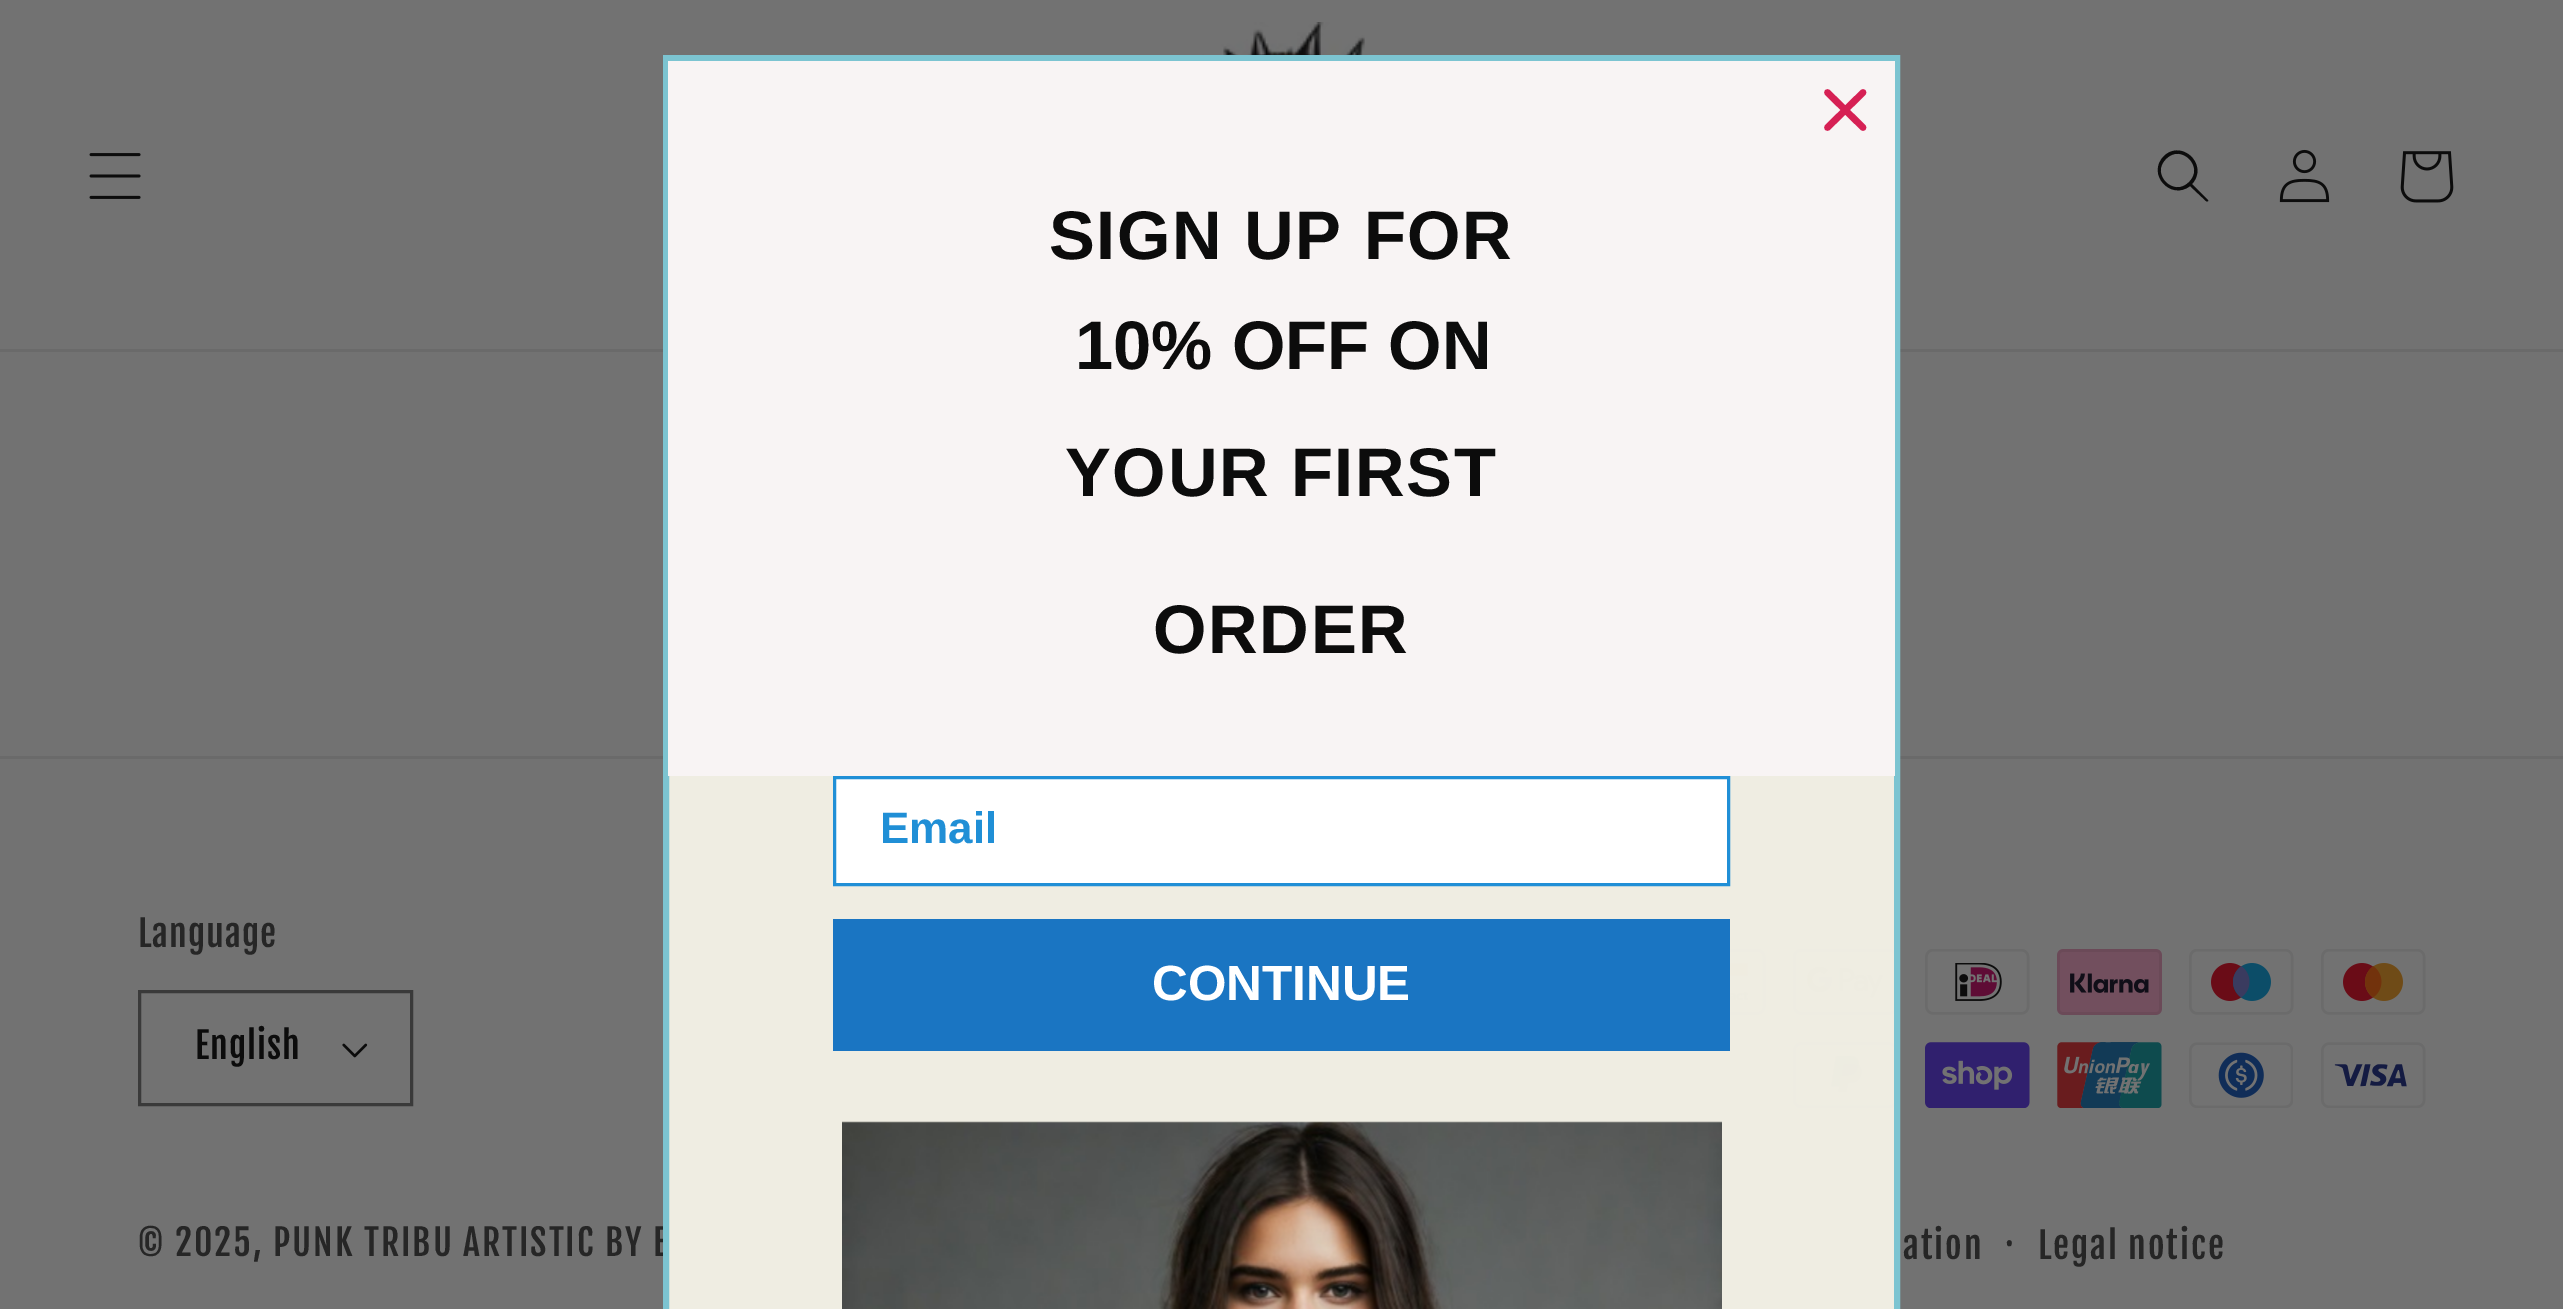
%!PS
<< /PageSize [2563 1309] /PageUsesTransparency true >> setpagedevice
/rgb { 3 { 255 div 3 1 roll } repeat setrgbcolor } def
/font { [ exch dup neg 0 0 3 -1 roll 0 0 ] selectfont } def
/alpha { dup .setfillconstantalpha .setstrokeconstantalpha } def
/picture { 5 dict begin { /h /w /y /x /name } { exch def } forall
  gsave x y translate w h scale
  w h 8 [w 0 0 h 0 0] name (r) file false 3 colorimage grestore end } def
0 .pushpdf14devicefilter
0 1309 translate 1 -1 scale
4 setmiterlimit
114 114 114 rgb
0 0 2563 1309 rectfill
106 106 106 rgb
0 349 2563 3 rectfill
(img/1.rgb) 1144 22 275 33 picture
(img/2.rgb) 89 153 52 46 picture
12 12 12 rgb
2189 182 moveto 2174 198 2150 174 2166 159 curveto 2181 143 2205 167 2189 182 curveto 2190 186 moveto 2171 201 2146 174 2164 156 curveto 2182 139 2209 165 2192 184 curveto 2208 200 lineto 2209 201 2207 202 2206 201 curveto closepath eofill
(img/3.rgb) 2279 149 51 54 picture
(img/4.rgb) 2400 151 54 52 picture
(img/7.rgb) 1730 949 36 66 picture
(img/8.rgb) 1793 949 101 66 picture
(img/13.rgb) 1793 1042 101 66 picture
0.99 alpha
240 238 227 rgb
669 776 1225 533 rectfill
1 alpha
106 106 106 rgb
0 756 2563 3 rectfill
(img/6.rgb) 342 1043 26 15 picture
58 58 58 rgb
3 setlinewidth
139.5 991.5 272 113 rectstroke
(img/9.rgb) 1925 949 105 66 picture
(img/10.rgb) 2057 949 105 66 picture
(img/11.rgb) 2189 949 105 66 picture
(img/12.rgb) 2321 949 105 66 picture
(img/14.rgb) 1925 1042 105 66 picture
(img/15.rgb) 2057 1042 105 66 picture
(img/16.rgb) 2189 1042 104 66 picture
(img/17.rgb) 2321 1042 105 66 picture
/FjallaOne-Regular 35.75 font
38 38 38 rgb
138 947 moveto 1 0 (Language) ashow
12 12 12 rgb
195 1059 moveto 1 0 (English) ashow
38 38 38 rgb
138 1256 moveto 1.9 0 (© 2025, PUNK TRIBU ARTISTIC BY E) ashow
124 196 209 rgb
6 setlinewidth
666 58 1231 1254 rectstroke
248 244 244 rgb
668 61 1227 715 rectfill
214 32 84 rgb
6.6 setlinewidth
1 setlinecap
1 setlinejoin
1827.5 92.5 moveto 1863 127.5 lineto 1827.5 127.5 moveto 1863 92.5 lineto closepath stroke
(img/5.rgb) 842 1121 880 188 picture
26 117 194 rgb
833 919 897 132 rectfill
/LiberationSans-Bold 49.5 font
255 255 255 rgb
1152 1000 moveto (CONTINUE) show
834.5 777.5 moveto 1728.5 777.5 lineto 1728.5 884.5 lineto 834.5 884.5 lineto closepath gsave fill grestore
32 143 214 rgb
3 setlinewidth
0 setlinecap
0 setlinejoin
stroke
/LiberationSans-Bold 44 font
880 843 moveto (Email) show
/LiberationSans-Bold 68.75 font
12 12 12 rgb
1153 653 moveto 1.6 0 (ORDER) ashow
1065 496 moveto 1.6 0 (YOUR FIRST) ashow
1075 369 moveto (10% OFF ON) show
1049 259 moveto 1.6 0 (SIGN UP FOR) ashow
/FjallaOne-Regular 35.75 font
38 38 38 rgb
1903 1259 moveto 1.9 0 (ation) ashow
/FjallaOne-Regular 33 font
2005 1256 moveto 1.9 0 (·) ashow
/FjallaOne-Regular 35.75 font
2038 1259 moveto 1.9 0 (Legal notice) ashow
.poppdf14devicefilter showpage
